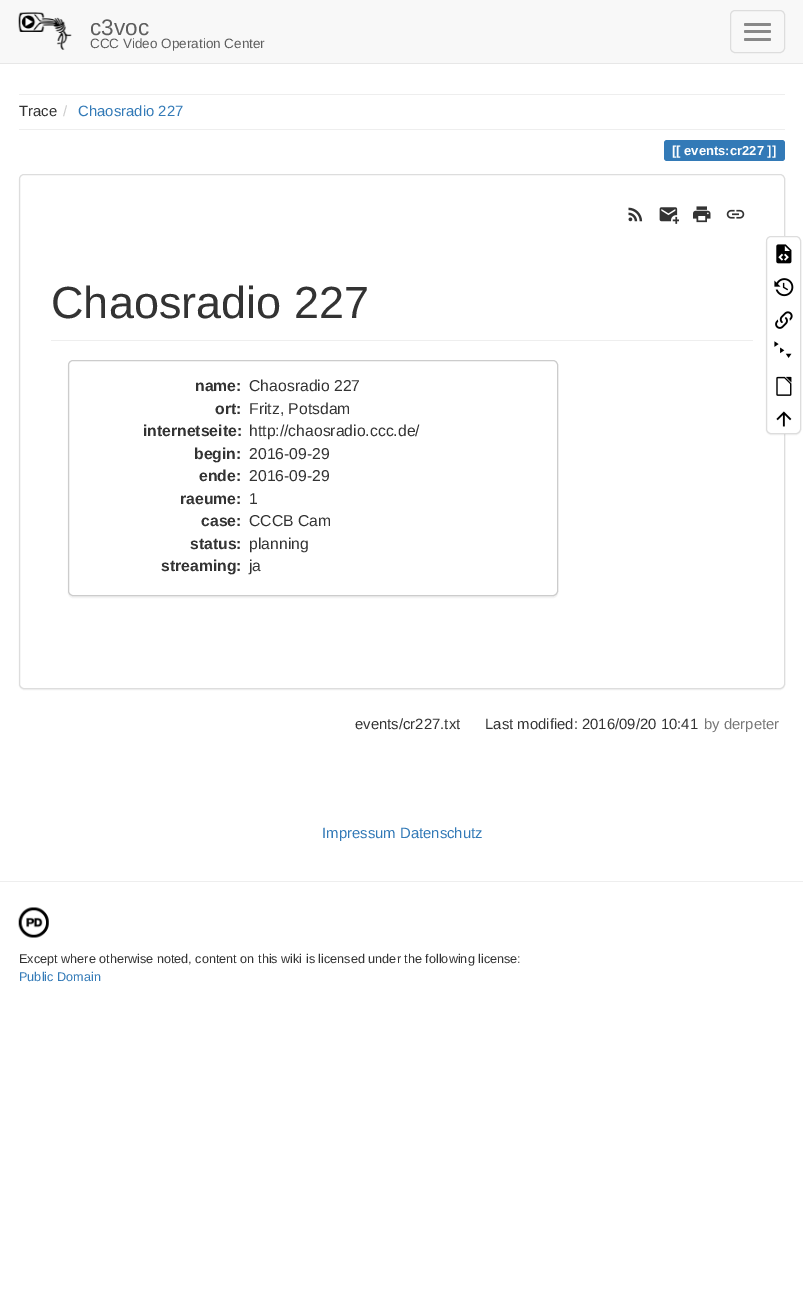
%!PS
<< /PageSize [803 1304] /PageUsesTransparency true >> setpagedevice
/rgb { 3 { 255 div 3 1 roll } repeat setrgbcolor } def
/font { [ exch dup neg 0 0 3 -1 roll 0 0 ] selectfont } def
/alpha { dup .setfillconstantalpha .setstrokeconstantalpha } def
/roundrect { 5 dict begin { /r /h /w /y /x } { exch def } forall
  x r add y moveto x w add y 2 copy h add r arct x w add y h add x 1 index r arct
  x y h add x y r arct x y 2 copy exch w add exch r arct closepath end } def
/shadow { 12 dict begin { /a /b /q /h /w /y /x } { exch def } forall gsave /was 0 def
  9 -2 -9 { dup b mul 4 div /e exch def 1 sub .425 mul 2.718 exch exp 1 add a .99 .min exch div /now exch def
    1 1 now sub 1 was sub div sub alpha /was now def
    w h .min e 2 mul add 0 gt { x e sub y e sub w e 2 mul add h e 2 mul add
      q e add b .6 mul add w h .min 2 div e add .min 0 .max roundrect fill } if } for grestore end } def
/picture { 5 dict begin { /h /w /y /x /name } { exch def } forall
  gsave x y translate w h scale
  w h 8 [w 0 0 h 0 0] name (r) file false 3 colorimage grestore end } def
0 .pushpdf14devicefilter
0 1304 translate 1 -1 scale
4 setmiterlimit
255 255 255 rgb
0 0 803 1304 rectfill
248 248 248 rgb
0 0 803 63 rectfill
231 231 231 rgb
0 63 803 1 rectfill
(img/1.rgb) 18 12 54 38 picture
221 221 221 rgb
730.5 10.5 54 42 4.5 roundrect stroke
136 136 136 rgb
744 23 27 3 1.5 roundrect fill
744 30 27 3 1.5 roundrect fill
744 38 27 3 1.5 roundrect fill
238 238 238 rgb
19 94 766 1 rectfill
19 129 766 1 rectfill
51 122 183 rgb
667 140 moveto 685 140 lineto 685 161 lineto 667 161 lineto 665.5 161 664 159.5 664 158 curveto 664 143 lineto 664 141.5 665.5 140 667 140 curveto closepath fill
685 140 80 21 rectfill
765 140 moveto 782 140 lineto 783.5 140 785 141.5 785 143 curveto 785 158 lineto 785 159.5 783.5 161 782 161 curveto 765 161 lineto closepath fill
0 0 0 rgb
19 175 766 515 5 0.5 0.05 shadow
255 255 255 rgb
19.5 174.5 765 514 4.5 roundrect gsave fill grestore
221 221 221 rgb
stroke
(img/2.rgb) 628 207 15 15 picture
(img/3.rgb) 659 207 20 17 picture
(img/4.rgb) 693 206 18 17 picture
(img/5.rgb) 726 209 19 10 picture
238 238 238 rgb
51 340 702 1 rectfill
0 0 0 rgb
68 361 490 237 5 0.5 0.05 shadow
255 255 255 rgb
68.5 360.5 489 235 4.5 roundrect gsave fill grestore
204 204 204 rgb
stroke
0 0 0 rgb
766 238 35 197 5 0.5 0.05 shadow
255 255 255 rgb
766.5 236.5 34 197 4.5 roundrect gsave fill grestore
221 221 221 rgb
stroke
(img/6.rgb) 776 244 16 20 picture
(img/7.rgb) 774 278 20 19 picture
(img/8.rgb) 775 311 18 18 picture
(img/9.rgb) 774 341 18 17 picture
(img/10.rgb) 776 376 16 20 picture
(img/11.rgb) 776 411 16 16 picture
238 238 238 rgb
0 881 803 1 rectfill
(img/12.rgb) 18 907 31 31 picture
/LiberationSans-Regular 22.5 font
94 94 94 rgb
90 35 moveto (c3voc) show
/LiberationSans-Regular 13.5 font
90 48 moveto (CCC Video Operation Center) show
/LiberationSans-Regular 14.9 font
51 51 51 rgb
19 116 moveto (Trace) show
204 204 204 rgb
63 116 moveto (/) show
51 122 183 rgb
78 116 moveto (Chaosradio 227) show
/LiberationSans-Bold 13 font
255 255 255 rgb
672 155 moveto ([[ events:cr227 ]]) show
/LiberationSans-Regular 45 font
51 51 51 rgb
51 318 moveto (Chaosradio 227) show
/LiberationSans-Bold 15.75 font
195 391 moveto (name:) show
/LiberationSans-Regular 15.75 font
249 391 moveto (Chaosradio 227) show
/LiberationSans-Bold 15.75 font
215 414 moveto (ort:) show
/LiberationSans-Regular 15.75 font
249 414 moveto (Fritz, Potsdam) show
/LiberationSans-Bold 15.75 font
143 436 moveto (internetseite:) show
/LiberationSans-Regular 15.75 font
249 436 moveto (http://chaosradio.ccc.de/) show
/LiberationSans-Bold 15.75 font
194 459 moveto (begin:) show
/LiberationSans-Regular 15.75 font
249 459 moveto (2016-09-29) show
/LiberationSans-Bold 15.75 font
199 481 moveto (ende:) show
/LiberationSans-Regular 15.75 font
249 481 moveto (2016-09-29) show
/LiberationSans-Bold 15.75 font
180 504 moveto (raeume:) show
/LiberationSans-Regular 15.75 font
249 504 moveto (1) show
/LiberationSans-Bold 15.75 font
201 526 moveto (case:) show
/LiberationSans-Regular 15.75 font
249 526 moveto (CCCB Cam) show
/LiberationSans-Bold 15.75 font
190 549 moveto (status:) show
/LiberationSans-Regular 15.75 font
249 549 moveto (planning) show
/LiberationSans-Bold 15.75 font
161 571 moveto (streaming:) show
/LiberationSans-Regular 15.75 font
249 571 moveto (ja) show
/LiberationSans-Regular 14.9 font
355 729 moveto (events/cr227.txt) show
485 729 moveto (Last modified: 2016/09/20 10:41) show
119 119 119 rgb
704 729 moveto (by derpeter) show
51 122 183 rgb
322 838 moveto (Impressum Datenschutz) show
/LiberationSans-Regular 12.65 font
51 51 51 rgb
19 963 moveto (Except where otherwise noted, content on this wiki is licensed under the following license:) show
51 122 183 rgb
19 981 moveto (Public Domain) show
.poppdf14devicefilter showpage
